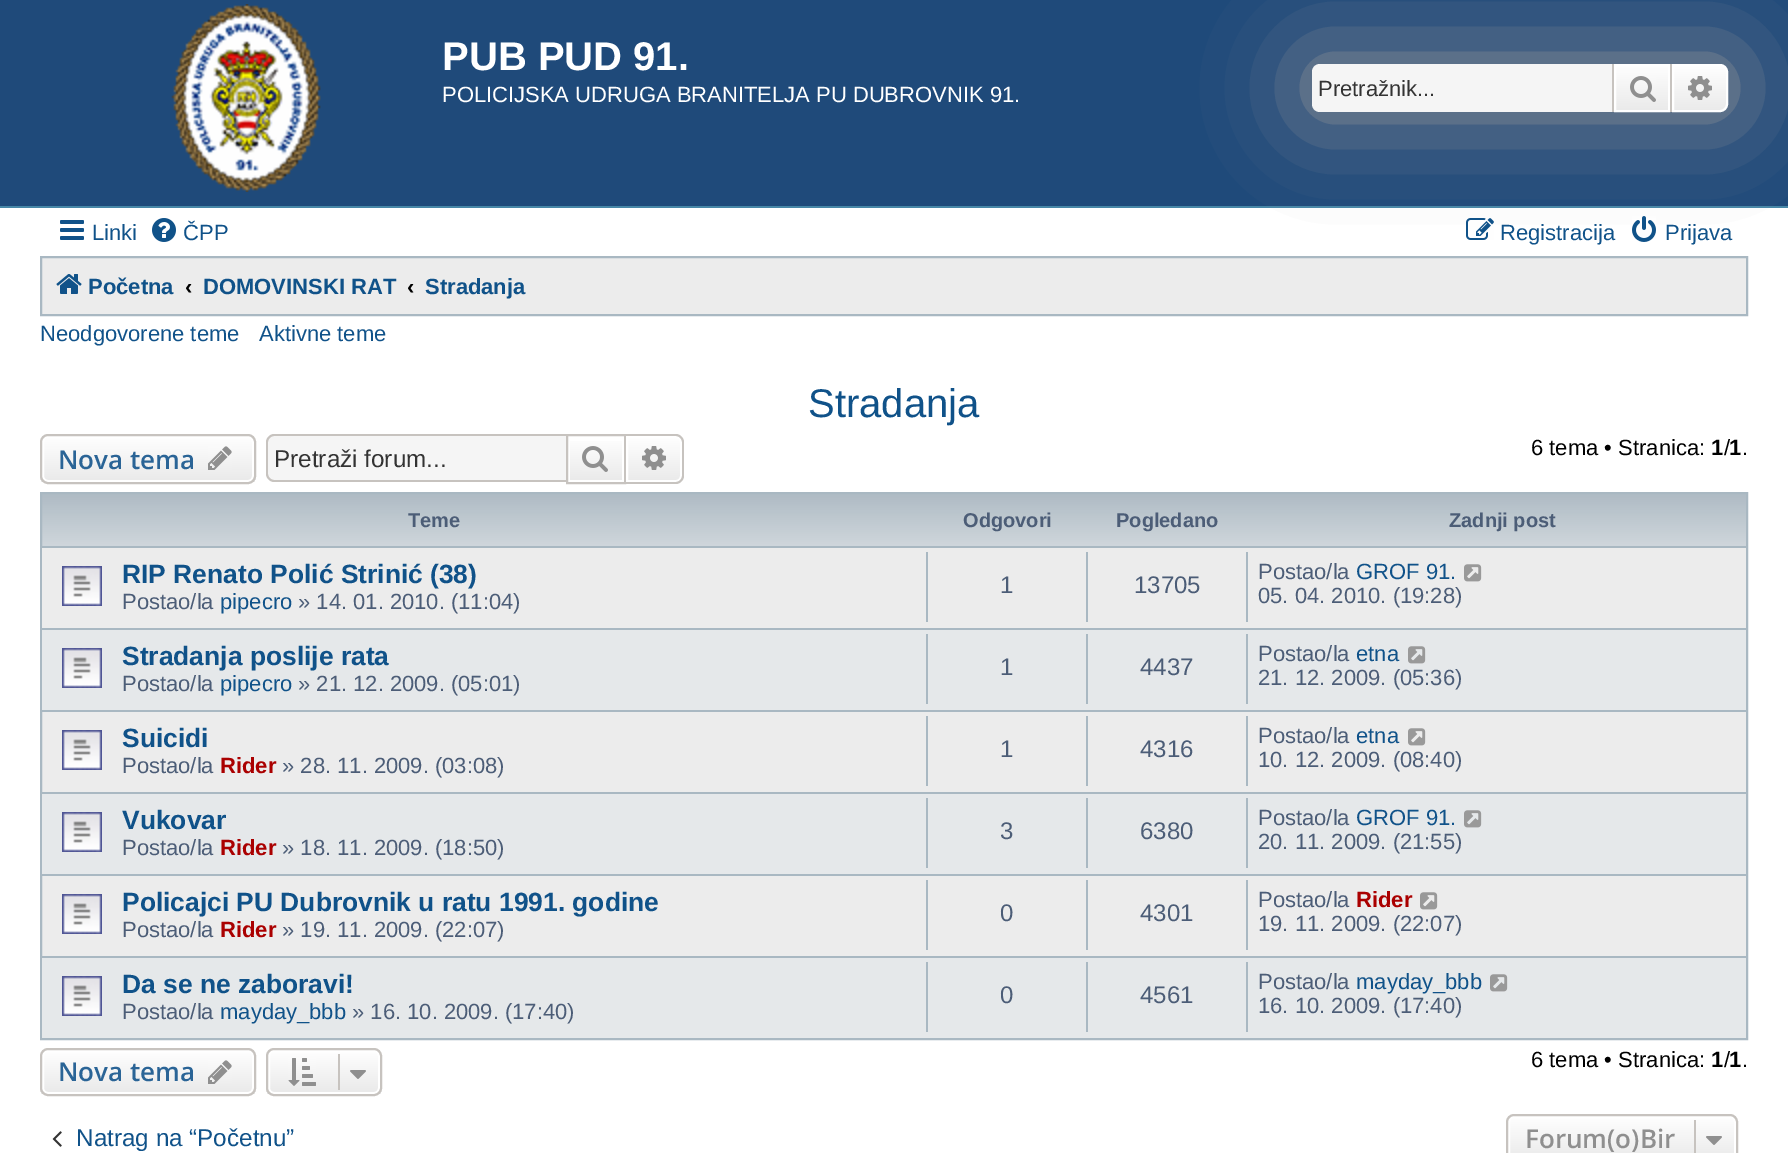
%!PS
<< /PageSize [1788 1153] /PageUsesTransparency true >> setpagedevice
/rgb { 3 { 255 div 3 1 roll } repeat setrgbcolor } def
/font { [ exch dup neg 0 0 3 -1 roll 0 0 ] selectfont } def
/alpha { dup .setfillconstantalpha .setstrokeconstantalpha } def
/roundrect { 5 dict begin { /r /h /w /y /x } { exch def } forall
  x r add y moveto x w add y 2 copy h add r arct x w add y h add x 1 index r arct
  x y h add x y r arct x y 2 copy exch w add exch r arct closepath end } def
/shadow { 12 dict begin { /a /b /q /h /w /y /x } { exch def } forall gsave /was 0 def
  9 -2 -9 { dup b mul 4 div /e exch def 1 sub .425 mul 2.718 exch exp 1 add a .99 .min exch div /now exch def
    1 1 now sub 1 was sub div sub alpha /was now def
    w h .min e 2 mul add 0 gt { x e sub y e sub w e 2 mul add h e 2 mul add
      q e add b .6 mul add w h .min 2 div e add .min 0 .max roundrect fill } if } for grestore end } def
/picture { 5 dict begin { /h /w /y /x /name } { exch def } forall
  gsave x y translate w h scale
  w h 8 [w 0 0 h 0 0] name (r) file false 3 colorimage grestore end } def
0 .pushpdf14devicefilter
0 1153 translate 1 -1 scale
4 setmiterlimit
255 255 255 rgb
0 0 1788 1153 rectfill
31 74 122 rgb
0 0 1788 206 rectfill
71 135 167 rgb
0 206 1788 2 rectfill
(img/1.rgb) 171 4 150 188 picture
236 236 236 rgb
41 257 moveto 1747 257 lineto 1747 315 lineto 41 315 lineto closepath gsave fill grestore
169 184 194 rgb
2 setlinewidth
stroke
153 153 153 rgb
1312 64 416 48 8 50 1 shadow
245 245 245 rgb
1320 64 moveto 1612 64 lineto 1612 112 lineto 1320 112 lineto 1315.5 112 1312 108.5 1312 104 curveto 1312 72 lineto 1312 67.5 1315.5 64 1320 64 curveto closepath fill
gsave 1616 66 moveto 1668 66 lineto 1668 110 lineto 1616 110 lineto closepath clip newpath
<< /ShadingType 2 /ColorSpace /DeviceRGB /Coords [1642 64 1642 112] /Extend [true true] /Function << /FunctionType 2 /Domain [0 1] /C0 [1 1 1] /C1 [0.914 0.914 0.914] /N 1 >> >> shfill grestore
255 255 255 rgb
1615 65 54 46 rectstroke
199 195 191 rgb
1670 64 2 48 rectfill
1612 64 2 48 rectfill
(img/2.rgb) 1630 76 26 26 picture
gsave 1673 65 moveto 1720 65 lineto 1724 65 1727 68 1727 72 curveto 1727 104 lineto 1727 108 1724 111 1720 111 curveto 1673 111 lineto closepath clip newpath
<< /ShadingType 2 /ColorSpace /DeviceRGB /Coords [1700 64 1700 112] /Extend [true true] /Function << /FunctionType 2 /Domain [0 1] /C0 [1 1 1] /C1 [0.914 0.914 0.914] /N 1 >> >> shfill grestore
255 255 255 rgb
1673 65 moveto 1720 65 lineto 1724 65 1727 68 1727 72 curveto 1727 104 lineto 1727 108 1724 111 1720 111 curveto 1673 111 lineto closepath stroke
(img/3.rgb) 1688 76 24 24 picture
(img/4.rgb) 60 220 24 20 picture
(img/5.rgb) 152 218 24 24 picture
(img/6.rgb) 1466 218 28 22 picture
(img/7.rgb) 1632 216 24 26 picture
(img/8.rgb) 56 274 26 20 picture
gsave
40 434 216 50 8 roundrect clip newpath
gsave 40 436 moveto 256 436 lineto 256 482 lineto 40 482 lineto closepath clip newpath
<< /ShadingType 2 /ColorSpace /DeviceRGB /Coords [148 436 148 482] /Extend [true true] /Function << /FunctionType 2 /Domain [0 1] /C0 [1 1 1] /C1 [0.914 0.914 0.914] /N 1 >> >> shfill grestore
grestore
43 437 210 44 5 roundrect stroke
199 195 191 rgb
41 435 214 48 7 roundrect stroke
(img/9.rgb) 208 446 24 24 picture
245 245 245 rgb
274 436 moveto 566 436 lineto 566 480 lineto 274 480 lineto 270.5 480 268 477.5 268 474 curveto 268 442 lineto 268 438.5 270.5 436 274 436 curveto closepath fill
199 195 191 rgb
274 434 moveto 566 434 lineto 566 482 lineto 274 482 lineto 270 482 266 478 266 474 curveto 266 442 lineto 266 438 270 434 274 434 curveto closepath 274 436 moveto 566 436 lineto 566 480 lineto 274 480 lineto 271 480 268 477 268 474 curveto 268 442 lineto 268 439 271 436 274 436 curveto closepath eofill
gsave 570 441 moveto 622 441 lineto 622 480 lineto 570 480 lineto closepath clip newpath
<< /ShadingType 2 /ColorSpace /DeviceRGB /Coords [596 436 596 482] /Extend [true true] /Function << /FunctionType 2 /Domain [0 1] /C0 [1 1 1] /C1 [0.914 0.914 0.914] /N 1 >> >> shfill grestore
567 435 58 48 rectstroke
(img/10.rgb) 582 446 26 26 picture
gsave 627 437 moveto 676 437 lineto 679 437 681 439 681 442 curveto 681 476 lineto 681 479 679 481 676 481 curveto 627 481 lineto closepath clip newpath
<< /ShadingType 2 /ColorSpace /DeviceRGB /Coords [654 436 654 482] /Extend [true true] /Function << /FunctionType 2 /Domain [0 1] /C0 [1 1 1] /C1 [0.914 0.914 0.914] /N 1 >> >> shfill grestore
255 255 255 rgb
627 437 moveto 676 437 lineto 679 437 681 439 681 442 curveto 681 476 lineto 681 479 679 481 676 481 curveto 627 481 lineto closepath stroke
199 195 191 rgb
626 434 moveto 676 434 lineto 680 434 684 438 684 442 curveto 684 476 lineto 684 480 680 484 676 484 curveto 626 484 lineto closepath 626 436 moveto 676 436 lineto 679 436 682 439 682 442 curveto 682 476 lineto 682 479 679 482 676 482 curveto 626 482 lineto closepath eofill
(img/11.rgb) 642 446 24 24 picture
236 236 236 rgb
42 712 1704 244 rectfill
(img/12.rgb) 42 494 1704 52 picture
169 184 194 rgb
41 493 1706 546 rectstroke
236 236 236 rgb
42 548 1704 80 rectfill
169 184 194 rgb
42 546 1704 2 rectfill
(img/13.rgb) 62 566 40 40 picture
[
  [926 552 2 70 169 184 194]
  [1086 552 2 70 169 184 194]
  [1246 552 2 70 169 184 194]
] { aload pop rgb rectfill } forall
(img/14.rgb) 1464 564 18 18 picture
229 232 234 rgb
42 630 1704 80 rectfill
169 184 194 rgb
42 628 1704 2 rectfill
(img/13.rgb) 62 648 40 40 picture
[
  [926 634 2 70 169 184 194]
  [1086 634 2 70 169 184 194]
  [1246 634 2 70 169 184 194]
] { aload pop rgb rectfill } forall
(img/15.rgb) 1408 646 18 18 picture
42 710 1704 2 rectfill
(img/13.rgb) 62 730 40 40 picture
[
  [926 716 2 70 169 184 194]
  [1086 716 2 70 169 184 194]
  [1246 716 2 70 169 184 194]
] { aload pop rgb rectfill } forall
(img/14.rgb) 1408 728 18 18 picture
229 232 234 rgb
42 794 1704 80 rectfill
169 184 194 rgb
42 792 1704 2 rectfill
(img/13.rgb) 62 812 40 40 picture
[
  [926 798 2 70 169 184 194]
  [1086 798 2 70 169 184 194]
  [1246 798 2 70 169 184 194]
] { aload pop rgb rectfill } forall
(img/15.rgb) 1464 810 18 18 picture
42 874 1704 2 rectfill
(img/13.rgb) 62 894 40 40 picture
[
  [926 880 2 70 169 184 194]
  [1086 880 2 70 169 184 194]
  [1246 880 2 70 169 184 194]
] { aload pop rgb rectfill } forall
(img/14.rgb) 1420 892 18 18 picture
229 232 234 rgb
42 958 1704 80 rectfill
169 184 194 rgb
42 956 1704 2 rectfill
(img/13.rgb) 62 976 40 40 picture
[
  [926 962 2 70 169 184 194]
  [1086 962 2 70 169 184 194]
  [1246 962 2 70 169 184 194]
] { aload pop rgb rectfill } forall
(img/15.rgb) 1490 974 18 18 picture
gsave
266 1048 116 48 8 roundrect clip newpath
gsave 266 1050 moveto 382 1050 lineto 382 1094 lineto 266 1094 lineto closepath clip newpath
<< /ShadingType 2 /ColorSpace /DeviceRGB /Coords [324 1050 324 1094] /Extend [true true] /Function << /FunctionType 2 /Domain [0 1] /C0 [1 1 1] /C1 [0.914 0.914 0.914] /N 1 >> >> shfill grestore
grestore
255 255 255 rgb
269 1051 110 42 5 roundrect stroke
199 195 191 rgb
267 1049 114 46 7 roundrect stroke
(img/16.rgb) 288 1058 28 28 picture
338 1054 2 36 rectfill
(img/17.rgb) 350 1070 16 9 picture
gsave
40 1048 216 48 8 roundrect clip newpath
gsave 40 1050 moveto 256 1050 lineto 256 1094 lineto 40 1094 lineto closepath clip newpath
<< /ShadingType 2 /ColorSpace /DeviceRGB /Coords [148 1050 148 1094] /Extend [true true] /Function << /FunctionType 2 /Domain [0 1] /C0 [1 1 1] /C1 [0.914 0.914 0.914] /N 1 >> >> shfill grestore
grestore
255 255 255 rgb
43 1051 210 42 5 roundrect stroke
199 195 191 rgb
41 1049 214 46 7 roundrect stroke
(img/18.rgb) 208 1060 24 24 picture
(img/19.rgb) 52 1131 10 16 picture
gsave
1506 1114 232 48 8 roundrect clip newpath
gsave 1506 1116 moveto 1738 1116 lineto 1738 1153 lineto 1506 1153 lineto closepath clip newpath
<< /ShadingType 2 /ColorSpace /DeviceRGB /Coords [1622 1116 1622 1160] /Extend [true true] /Function << /FunctionType 2 /Domain [0 1] /C0 [1 1 1] /C1 [0.914 0.914 0.914] /N 1 >> >> shfill grestore
grestore
255 255 255 rgb
1509 1117 226 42 5 roundrect stroke
199 195 191 rgb
1507 1115 230 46 7 roundrect stroke
1694 1120 2 33 rectfill
(img/17.rgb) 1706 1136 16 9 picture
/LiberationSans-Bold 40 font
255 255 255 rgb
442 70 moveto (PUB PUD 91.) show
/LiberationSans-Regular 22 font
442 102 moveto (POLICIJSKA UDRUGA BRANITELJA PU DUBROVNIK 91.) show
51 51 51 rgb
1318 96 moveto (Pretražnik...) show
16 82 137 rgb
[
  [(Linki) 92 240]
  [(ČPP) 183 240]
  [(Registracija) 1500 240]
  [(Prijava) 1665 240]
] { aload pop moveto show } forall
/LiberationSans-Bold 22 font
88 294 moveto (Početna) show
0 0 0 rgb
185 294 moveto (‹) show
16 82 137 rgb
203 294 moveto (DOMOVINSKI RAT) show
0 0 0 rgb
407 294 moveto (‹) show
16 82 137 rgb
425 294 moveto (Stradanja) show
/LiberationSans-Regular 22 font
40 341 moveto (Neodgovorene teme) show
259 341 moveto (Aktivne teme) show
/LiberationSans-Regular 40 font
808 417 moveto (Stradanja) show
/OpenSans-SemiBold 26 font
42 100 150 rgb
58 469 moveto (Nova tema) show
/LiberationSans-Regular 24.25 font
51 51 51 rgb
274 467 moveto (Pretraži forum...) show
/LiberationSans-Regular 22 font
0 0 0 rgb
1531 455 moveto (6 tema • Stranica:) show
/LiberationSans-Bold 22 font
1711 455 moveto (1 1) show
/LiberationSans-Regular 22 font
1724 455 moveto (/) show
1742 455 moveto (.) show
/LiberationSans-Bold 20 font
76 93 119 rgb
[
  [(Teme) 408 527]
  [(Odgovori) 963 527]
  [(Pogledano) 1116 527]
  [(Zadnji post) 1449 527]
] { aload pop moveto show } forall
/LiberationSans-Bold 26.4 font
16 82 137 rgb
122 583 moveto (RIP Renato Polić Strinić \(38\)) show
/LiberationSans-Regular 22 font
76 93 119 rgb
122 609 moveto (Postao/la) show
16 82 137 rgb
220 609 moveto (pipecro) show
76 93 119 rgb
298 609 moveto (» 14. 01. 2010. \(11:04\)) show
/LiberationSans-Regular 24 font
1000 593 moveto (1) show
1134 593 moveto (13705) show
/LiberationSans-Regular 22 font
1258 579 moveto (Postao/la) show
16 82 137 rgb
1356 579 moveto (GROF 91.) show
76 93 119 rgb
1258 603 moveto (05. 04. 2010. \(19:28\)) show
/LiberationSans-Bold 26.4 font
16 82 137 rgb
122 665 moveto (Stradanja poslije rata) show
/LiberationSans-Regular 22 font
76 93 119 rgb
122 691 moveto (Postao/la) show
16 82 137 rgb
220 691 moveto (pipecro) show
76 93 119 rgb
298 691 moveto (» 21. 12. 2009. \(05:01\)) show
/LiberationSans-Regular 24 font
1000 675 moveto (1) show
1140 675 moveto (4437) show
/LiberationSans-Regular 22 font
1258 661 moveto (Postao/la) show
16 82 137 rgb
1356 661 moveto (etna) show
76 93 119 rgb
1258 685 moveto (21. 12. 2009. \(05:36\)) show
/LiberationSans-Bold 26.4 font
16 82 137 rgb
122 747 moveto (Suicidi) show
/LiberationSans-Regular 22 font
76 93 119 rgb
122 773 moveto (Postao/la) show
/LiberationSans-Bold 22 font
170 0 0 rgb
220 773 moveto (Rider) show
/LiberationSans-Regular 22 font
76 93 119 rgb
282 773 moveto (» 28. 11. 2009. \(03:08\)) show
/LiberationSans-Regular 24 font
1000 757 moveto (1) show
1140 757 moveto (4316) show
/LiberationSans-Regular 22 font
1258 743 moveto (Postao/la) show
16 82 137 rgb
1356 743 moveto (etna) show
76 93 119 rgb
1258 767 moveto (10. 12. 2009. \(08:40\)) show
/LiberationSans-Bold 26.4 font
16 82 137 rgb
122 829 moveto (Vukovar) show
/LiberationSans-Regular 22 font
76 93 119 rgb
122 855 moveto (Postao/la) show
/LiberationSans-Bold 22 font
170 0 0 rgb
220 855 moveto (Rider) show
/LiberationSans-Regular 22 font
76 93 119 rgb
282 855 moveto (» 18. 11. 2009. \(18:50\)) show
/LiberationSans-Regular 24 font
1000 839 moveto (3) show
1140 839 moveto (6380) show
/LiberationSans-Regular 22 font
1258 825 moveto (Postao/la) show
16 82 137 rgb
1356 825 moveto (GROF 91.) show
76 93 119 rgb
1258 849 moveto (20. 11. 2009. \(21:55\)) show
/LiberationSans-Bold 26.4 font
16 82 137 rgb
122 911 moveto (Policajci PU Dubrovnik u ratu 1991. godine) show
/LiberationSans-Regular 22 font
76 93 119 rgb
122 937 moveto (Postao/la) show
/LiberationSans-Bold 22 font
170 0 0 rgb
220 937 moveto (Rider) show
/LiberationSans-Regular 22 font
76 93 119 rgb
282 937 moveto (» 19. 11. 2009. \(22:07\)) show
/LiberationSans-Regular 24 font
1000 921 moveto (0) show
1140 921 moveto (4301) show
/LiberationSans-Regular 22 font
1258 907 moveto (Postao/la) show
/LiberationSans-Bold 22 font
170 0 0 rgb
1356 907 moveto (Rider) show
/LiberationSans-Regular 22 font
76 93 119 rgb
1258 931 moveto (19. 11. 2009. \(22:07\)) show
/LiberationSans-Bold 26.4 font
16 82 137 rgb
122 993 moveto (Da se ne zaboravi!) show
/LiberationSans-Regular 22 font
76 93 119 rgb
122 1019 moveto (Postao/la) show
16 82 137 rgb
220 1019 moveto (mayday_bbb) show
76 93 119 rgb
352 1019 moveto (» 16. 10. 2009. \(17:40\)) show
/LiberationSans-Regular 24 font
1000 1003 moveto (0) show
1140 1003 moveto (4561) show
/LiberationSans-Regular 22 font
1258 989 moveto (Postao/la) show
16 82 137 rgb
1356 989 moveto (mayday_bbb) show
76 93 119 rgb
1258 1013 moveto (16. 10. 2009. \(17:40\)) show
0 0 0 rgb
1531 1067 moveto (6 tema • Stranica:) show
/LiberationSans-Bold 22 font
1711 1067 moveto (1 1) show
/LiberationSans-Regular 22 font
1724 1067 moveto (/) show
1742 1067 moveto (.) show
/OpenSans-SemiBold 26 font
42 100 150 rgb
58 1081 moveto (Nova tema) show
/LiberationSans-Regular 24.25 font
16 82 137 rgb
76 1146 moveto (Natrag na “Početnu”) show
/OpenSans-SemiBold 26 font
143 143 143 rgb
1525 1148 moveto (Forum\(o\)Bir) show
.poppdf14devicefilter showpage
